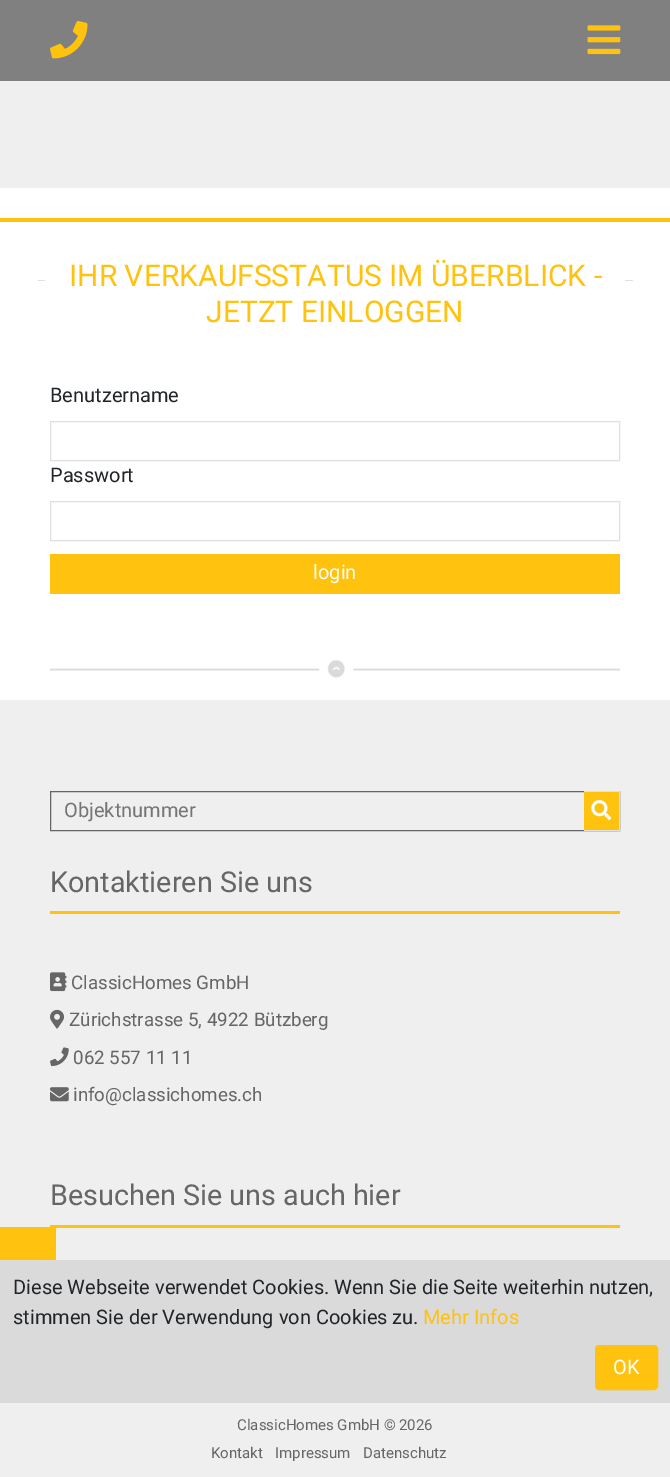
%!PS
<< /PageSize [670 1477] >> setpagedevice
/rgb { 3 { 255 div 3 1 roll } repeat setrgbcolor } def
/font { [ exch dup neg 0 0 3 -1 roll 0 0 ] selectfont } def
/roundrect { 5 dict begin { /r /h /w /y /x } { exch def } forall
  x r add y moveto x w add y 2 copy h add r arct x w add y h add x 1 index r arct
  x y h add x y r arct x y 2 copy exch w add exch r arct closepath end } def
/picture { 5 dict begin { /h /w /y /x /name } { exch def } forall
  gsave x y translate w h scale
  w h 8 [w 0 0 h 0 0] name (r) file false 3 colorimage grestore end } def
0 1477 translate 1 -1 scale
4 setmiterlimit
255 255 255 rgb
0 0 670 1477 rectfill
128 128 128 rgb
0 0 670 81 rectfill
(img/1.rgb) 50 21 38 38 picture
(img/2.rgb) 587 25 34 30 picture
[
  [0 81 670 107 239 239 239]
  [0 218 670 4 255 194 14]
  [38 280 7 1 224 224 224]
  [625 280 8 1 224 224 224]
] { aload pop rgb rectfill } forall
50.5 421.5 569 39 rectstroke
50.5 501.5 569 39 rectstroke
[
  [50 554 570 40 255 194 14]
  [0 700 670 777 239 239 239]
  [50 1225 570 3 255 194 14]
  [0 1227 56 33 255 194 14]
] { aload pop rgb rectfill } forall
(img/3.rgb) 50 660 570 18 picture
102 102 102 rgb
50.5 791.5 569 39 rectstroke
[
  [584 792 35 38 255 194 14]
  [584 791 36 1 224 224 224]
  [619 791 1 40 224 224 224]
  [584 830 36 1 224 224 224]
] { aload pop rgb rectfill } forall
(img/4.rgb) 591 800 21 20 picture
255 194 14 rgb
50 911 570 3 rectfill
(img/5.rgb) 50 972 17 20 picture
(img/6.rgb) 50 1009 14 20 picture
(img/7.rgb) 50 1047 19 20 picture
(img/8.rgb) 50 1087 19 15 picture
218 218 218 rgb
0 1260 670 143 rectfill
255 194 14 rgb
595.5 1345.5 62 44 3.5 roundrect gsave fill grestore
stroke
/Roboto-Regular 30 font
69 286 moveto (IHR VERKAUFSSTATUS IM ÜBERBLICK -) show
206 322 moveto (JETZT EINLOGGEN) show
/Roboto-Regular 20 font
33 37 41 rgb
50 402 moveto (Benutzername) show
50 482 moveto (Passwort) show
255 255 255 rgb
313 579 moveto (login) show
117 117 117 rgb
64 817 moveto (Objektnummer) show
/Roboto-Regular 28.75 font
102 102 102 rgb
50 892 moveto (Kontaktieren Sie uns) show
/Roboto-Regular 18.75 font
[
  [(ClassicHomes GmbH) 71 989]
  [(Zürichstrasse 5, 4922 Bützberg) 69 1026]
  [(062 557 11 11) 73 1064]
  [(info@classichomes.ch) 73 1101]
] { aload pop moveto show } forall
/Roboto-Regular 28.75 font
50 1205 moveto (Besuchen Sie uns auch hier) show
/Roboto-Regular 15 font
[
  [(ClassicHomes GmbH © 2026) 237 1430]
  [(Kontakt) 211 1458]
  [(Impressum) 275 1458]
  [(Datenschutz) 363 1458]
] { aload pop moveto show } forall
/Roboto-Regular 20 font
33 37 41 rgb
13 1294 moveto (Diese Webseite verwendet Cookies. Wenn Sie die Seite weiterhin nutzen,) show
13 1324 moveto (stimmen Sie der Verwendung von Cookies zu.) show
255 194 14 rgb
423 1324 moveto (Mehr Infos) show
255 255 255 rgb
613 1374 moveto (OK) show
showpage
